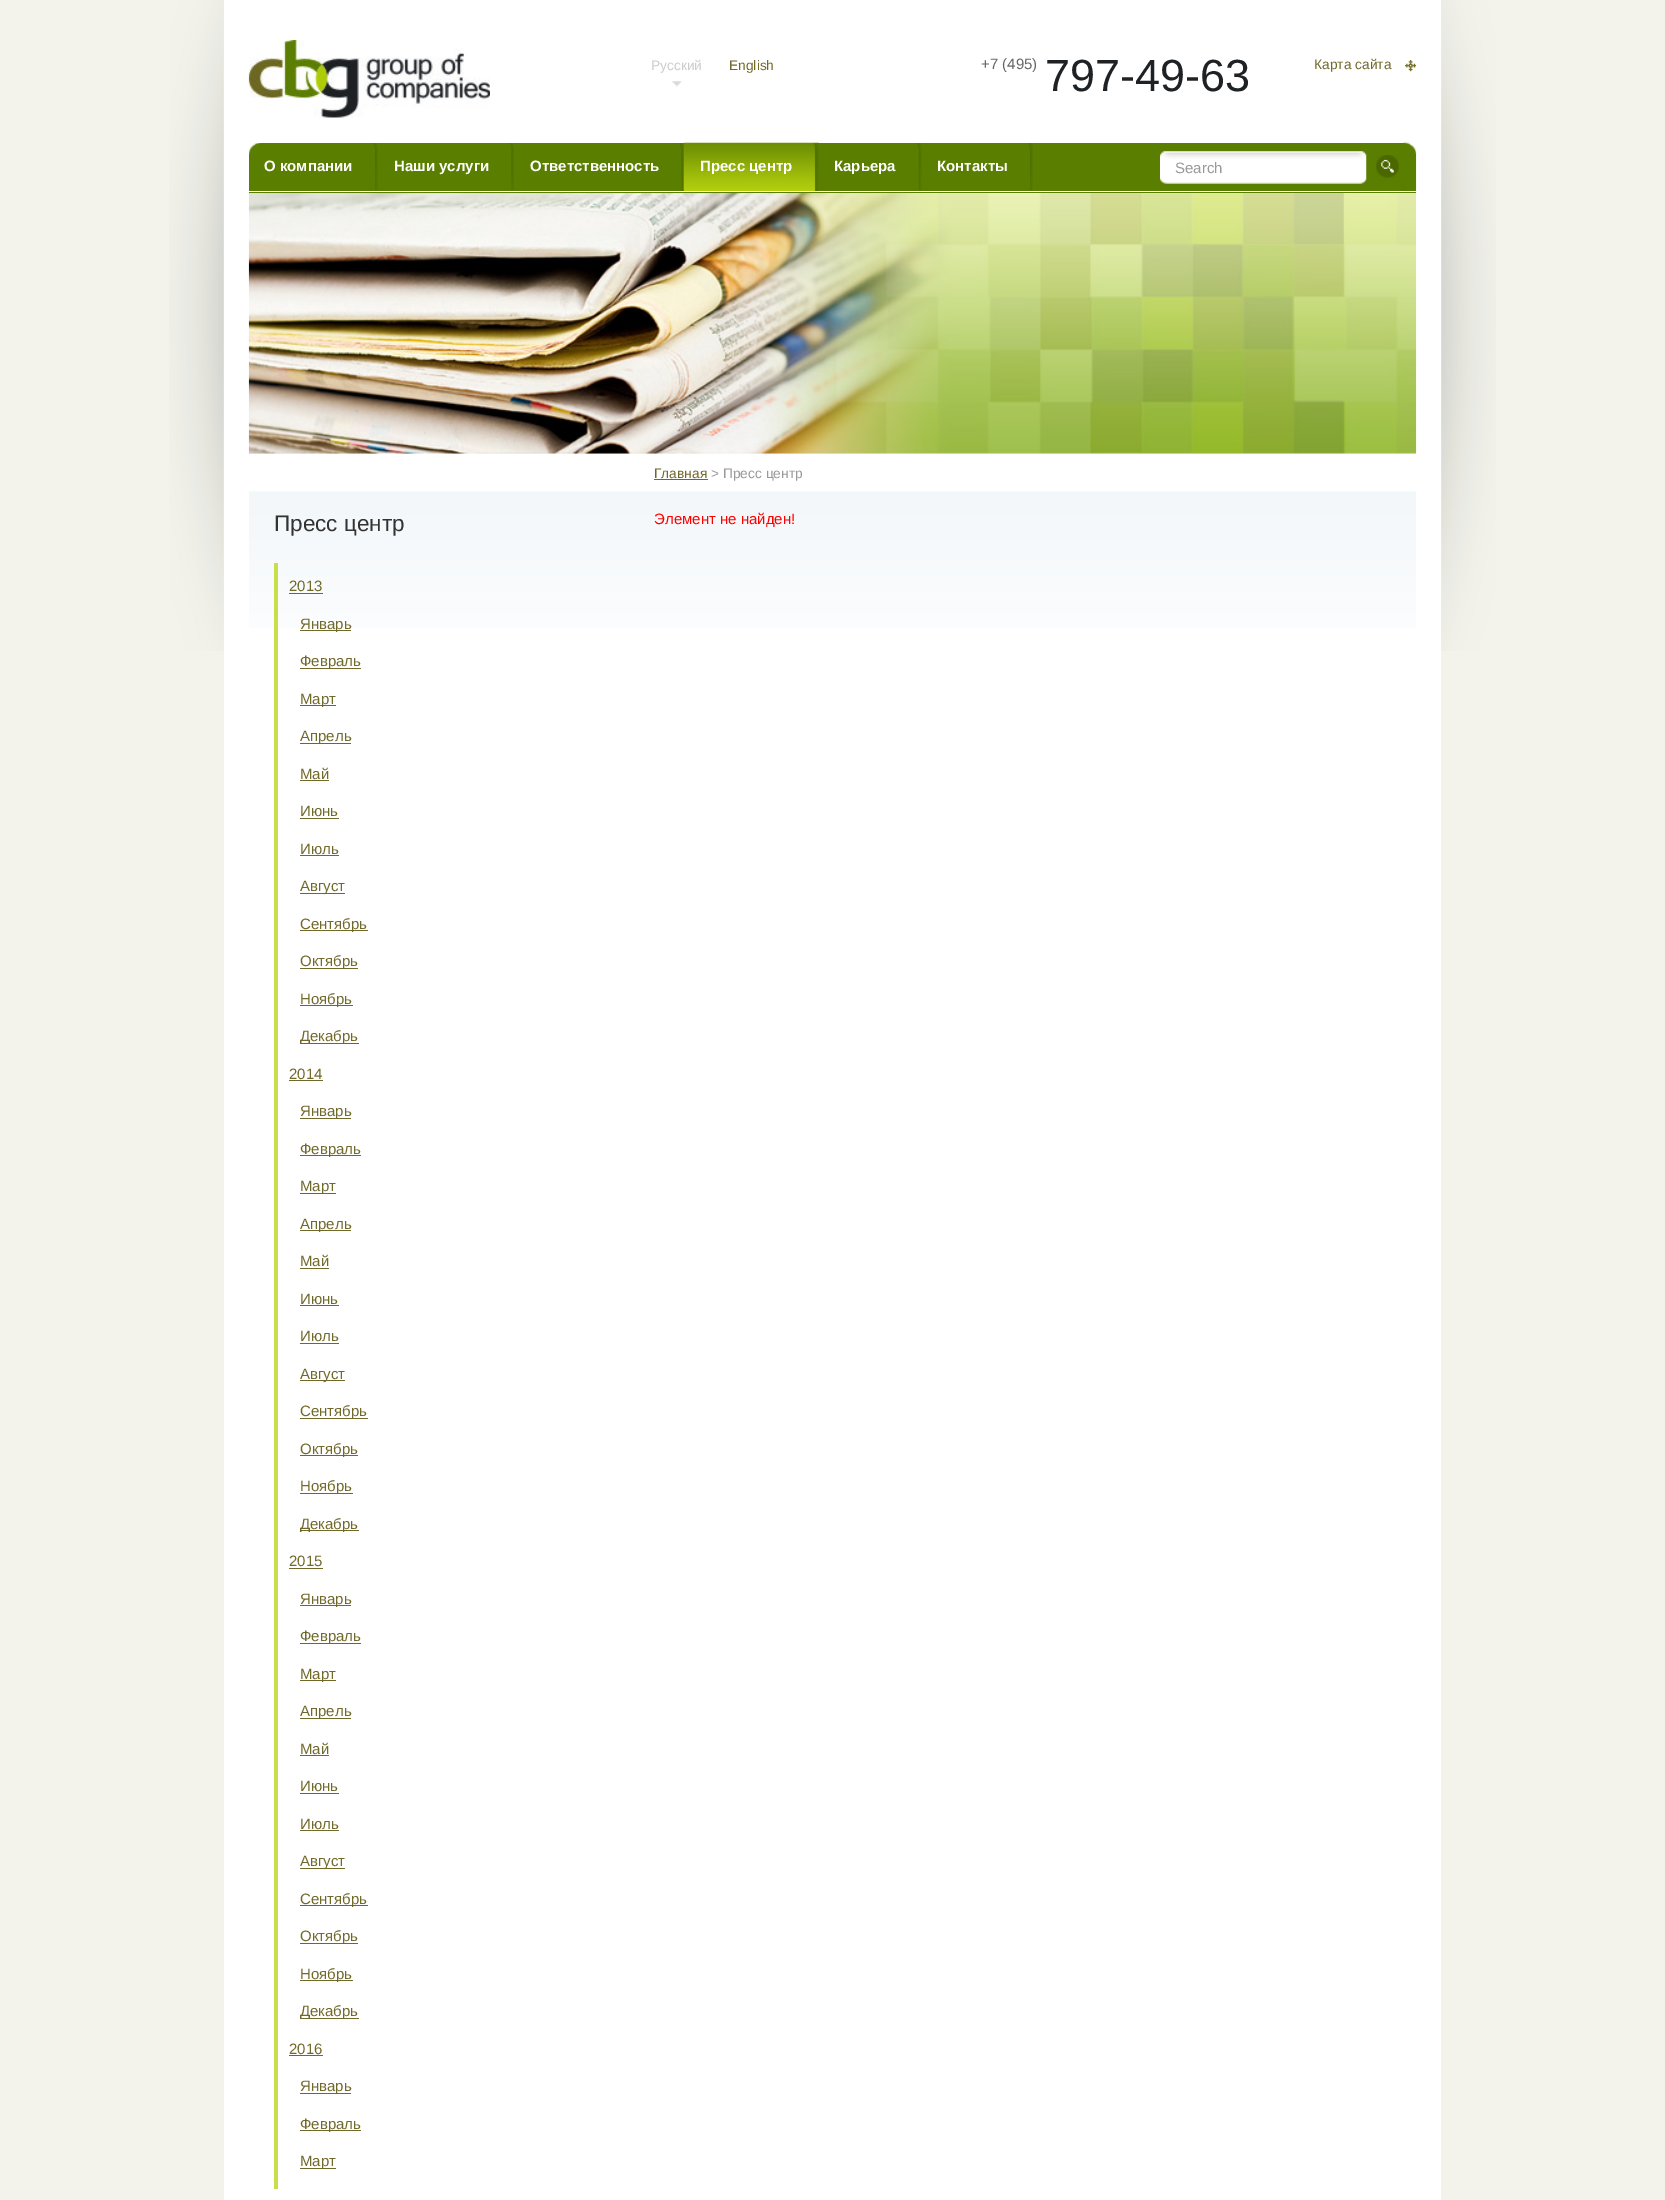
%!PS
<< /PageSize [1665 2200] >> setpagedevice
/rgb { 3 { 255 div 3 1 roll } repeat setrgbcolor } def
/font { [ exch dup neg 0 0 3 -1 roll 0 0 ] selectfont } def
/picture { 5 dict begin { /h /w /y /x /name } { exch def } forall
  gsave x y translate w h scale
  w h 8 [w 0 0 h 0 0] name (r) file false 3 colorimage grestore end } def
0 2200 translate 1 -1 scale
4 setmiterlimit
243 243 236 rgb
0 0 1665 2200 rectfill
(img/1.rgb) 169 0 1327 651 picture
255 255 255 rgb
224 0 1217 2200 rectfill
(img/2.rgb) 248 40 242 78 picture
(img/3.rgb) 672 81 10 6 picture
(img/4.rgb) 1405 60 12 12 picture
90 126 0 rgb
249 143 1167 50 rectfill
255 255 255 rgb
249 191 1167 1 rectfill
(img/5.rgb) 249 143 12 12 picture
(img/6.rgb) 373 143 5 48 picture
(img/7.rgb) 509 143 5 48 picture
(img/7.rgb) 679 143 5 48 picture
(img/8.rgb) 683 142 136 50 picture
(img/9.rgb) 916 143 6 48 picture
(img/10.rgb) 1028 143 5 48 picture
(img/11.rgb) 1403 142 14 50 picture
(img/12.rgb) 1160 151 207 33 picture
(img/13.rgb) 1376 155 23 23 picture
(img/14.rgb) 248 193 1169 261 picture
(img/15.rgb) 249 491 1167 137 picture
[
  [654 479 54 1 113 105 42]
  [274 563 4 1626 201 222 74]
  [289 593 34 1 113 105 42]
  [300 630 51 1 113 105 42]
  [300 668 61 1 113 105 42]
  [300 705 36 1 113 105 42]
  [300 743 51 1 113 105 42]
  [300 780 29 1 113 105 42]
  [300 818 39 1 113 105 42]
  [300 855 39 1 113 105 42]
  [300 893 45 1 113 105 42]
  [300 930 68 1 113 105 42]
  [300 968 58 1 113 105 42]
  [300 1005 53 1 113 105 42]
  [300 1043 59 1 113 105 42]
  [289 1080 34 1 113 105 42]
  [300 1118 51 1 113 105 42]
  [300 1155 61 1 113 105 42]
  [300 1193 36 1 113 105 42]
  [300 1230 51 1 113 105 42]
  [300 1268 29 1 113 105 42]
  [300 1305 39 1 113 105 42]
  [300 1343 39 1 113 105 42]
  [300 1380 45 1 113 105 42]
  [300 1418 68 1 113 105 42]
  [300 1455 58 1 113 105 42]
  [300 1493 53 1 113 105 42]
  [300 1530 59 1 113 105 42]
  [289 1568 34 1 113 105 42]
  [300 1605 51 1 113 105 42]
  [300 1643 61 1 113 105 42]
  [300 1680 36 1 113 105 42]
  [300 1718 51 1 113 105 42]
  [300 1755 29 1 113 105 42]
  [300 1793 39 1 113 105 42]
  [300 1830 39 1 113 105 42]
  [300 1868 45 1 113 105 42]
  [300 1905 68 1 113 105 42]
  [300 1943 58 1 113 105 42]
  [300 1980 53 1 113 105 42]
  [300 2018 59 1 113 105 42]
  [289 2055 34 1 113 105 42]
  [300 2093 51 1 113 105 42]
  [300 2130 61 1 113 105 42]
  [300 2168 36 1 113 105 42]
] { aload pop rgb rectfill } forall
/LiberationSans-Regular 13.75 font
204 204 204 rgb
651 70 moveto (Русский) show
113 105 42 rgb
729 70 moveto (English) show
/LiberationSans-Regular 15 font
102 102 102 rgb
981 69 moveto (+7 \(495\)) show
/LiberationSans-Regular 45 font
30 34 37 rgb
1045 91 moveto (797-49-63) show
/LiberationSans-Regular 13.75 font
113 105 42 rgb
1314 69 moveto (Карта сайта) show
/LiberationSans-Bold 15 font
255 255 255 rgb
[
  [(О компании) 264 171]
  [(Наши услуги) 394 171]
  [(Ответственность) 530 171]
  [(Пресс центр) 700 171]
  [(Карьера) 834 171]
  [(Контакты) 937 171]
] { aload pop moveto show } forall
/LiberationSans-Regular 15 font
153 153 153 rgb
1175 173 moveto (Search) show
/LiberationSans-Regular 13.75 font
113 105 42 rgb
654 478 moveto (Главная) show
153 153 153 rgb
711 478 moveto (> Пресс центр) show
/LiberationSans-Regular 15 font
255 0 0 rgb
654 524 moveto (Элемент не найден!) show
/LiberationSans-Regular 22.5 font
51 51 51 rgb
274 531 moveto (Пресс центр) show
/LiberationSans-Regular 15 font
113 105 42 rgb
[
  [(2013) 289 591]
  [(Январь) 300 629]
  [(Февраль) 300 666]
  [(Март) 300 704]
  [(Апрель) 300 741]
  [(Май) 300 779]
  [(Июнь) 300 816]
  [(Июль) 300 854]
  [(Август) 300 891]
  [(Сентябрь) 300 929]
  [(Октябрь) 300 966]
  [(Ноябрь) 300 1004]
  [(Декабрь) 300 1041]
  [(2014) 289 1079]
  [(Январь) 300 1116]
  [(Февраль) 300 1154]
  [(Март) 300 1191]
  [(Апрель) 300 1229]
  [(Май) 300 1266]
  [(Июнь) 300 1304]
  [(Июль) 300 1341]
  [(Август) 300 1379]
  [(Сентябрь) 300 1416]
  [(Октябрь) 300 1454]
  [(Ноябрь) 300 1491]
  [(Декабрь) 300 1529]
  [(2015) 289 1566]
  [(Январь) 300 1604]
  [(Февраль) 300 1641]
  [(Март) 300 1679]
  [(Апрель) 300 1716]
  [(Май) 300 1754]
  [(Июнь) 300 1791]
  [(Июль) 300 1829]
  [(Август) 300 1866]
  [(Сентябрь) 300 1904]
  [(Октябрь) 300 1941]
  [(Ноябрь) 300 1979]
  [(Декабрь) 300 2016]
  [(2016) 289 2054]
  [(Январь) 300 2091]
  [(Февраль) 300 2129]
  [(Март) 300 2166]
] { aload pop moveto show } forall
showpage
